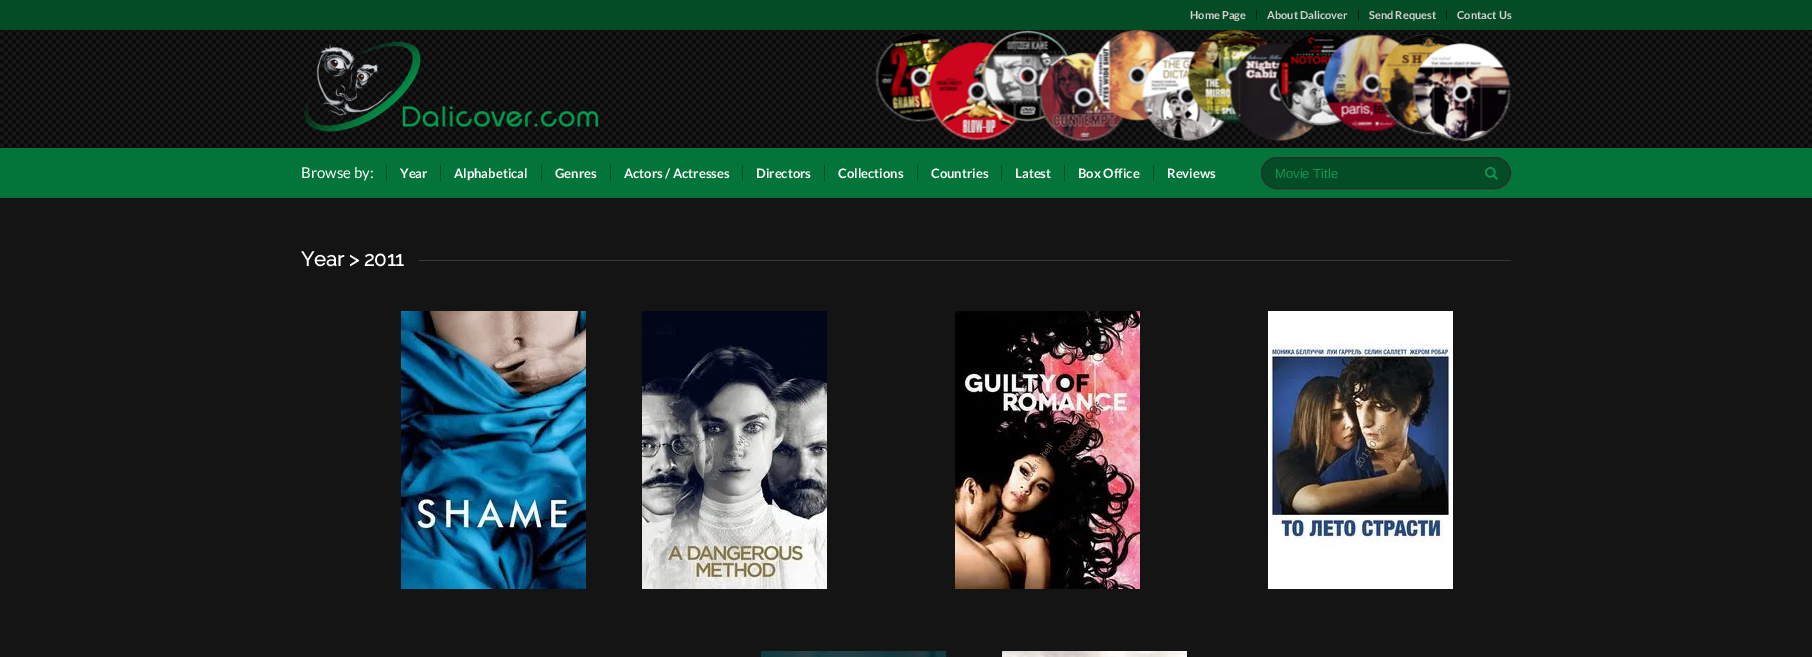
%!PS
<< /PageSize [1812 657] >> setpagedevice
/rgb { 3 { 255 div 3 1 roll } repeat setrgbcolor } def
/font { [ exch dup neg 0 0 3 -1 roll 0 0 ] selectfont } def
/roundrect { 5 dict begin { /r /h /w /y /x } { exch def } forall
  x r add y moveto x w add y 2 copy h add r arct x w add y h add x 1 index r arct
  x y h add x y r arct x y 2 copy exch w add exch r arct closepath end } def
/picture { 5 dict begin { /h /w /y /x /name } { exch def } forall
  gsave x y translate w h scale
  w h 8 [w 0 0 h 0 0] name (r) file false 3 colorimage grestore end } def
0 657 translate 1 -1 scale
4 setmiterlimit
20 20 20 rgb
0 0 1812 657 rectfill
[
  [0 0 1812 30 3 76 38]
  [1256 10 1 10 2 33 16]
  [1358 10 1 10 2 33 16]
  [1446 10 1 10 2 33 16]
] { aload pop rgb rectfill } forall
(img/1.rgb) 0 30 1812 118 picture
(img/2.rgb) 875 30 636 112 picture
(img/3.rgb) 304 41 295 91 picture
[
  [0 148 1812 50 4 117 58]
  [386 165 1 16 3 76 38]
  [440 165 1 16 3 76 38]
  [541 165 1 16 3 76 38]
  [610 165 1 16 3 76 38]
  [742 165 1 16 3 76 38]
  [824 165 1 16 3 76 38]
  [917 165 1 16 3 76 38]
  [1001 165 1 16 3 76 38]
  [1064 165 1 16 3 76 38]
  [1153 165 1 16 3 76 38]
] { aload pop rgb rectfill } forall
1261.5 157.5 249 31 15.5 roundrect gsave fill grestore
43 43 43 rgb
stroke
(img/4.rgb) 1485 167 13 13 picture
55 55 55 rgb
419 260 1092 1 rectfill
(img/5.rgb) 401 311 185 278 picture
(img/6.rgb) 642 311 185 278 picture
(img/7.rgb) 955 311 185 278 picture
(img/8.rgb) 1268 311 185 278 picture
(img/9.rgb) 761 651 185 6 picture
(img/10.rgb) 1002 651 185 6 picture
/Lato-Bold 11 font
218 207 207 rgb
[
  [(Home Page) 1190 19]
  [(About Dalicover) 1267 19]
  [(Send Request) 1369 19]
  [(Contact Us) 1457 19]
] { aload pop moveto show } forall
/Lato-Regular 15 font
255 255 255 rgb
301 178 moveto (Browse by:) show
/Lato-Bold 13 font
[
  [(Year) 400 178]
  [(Alphabetical) 454 178]
  [(Genres) 555 178]
  [(Actors / Actresses) 624 178]
  [(Directors) 756 178]
  [(Collections) 838 178]
  [(Countries) 931 178]
  [(Latest) 1015 178]
  [(Box Office) 1078 178]
  [(Reviews) 1167 178]
] { aload pop moveto show } forall
/LiberationSans-Regular 13 font
14 152 80 rgb
1275 178 moveto (Movie Title) show
/Raleway-Bold 20 font
255 255 255 rgb
301 266 moveto (Year > 2011) show
/Lato-Regular 9.25 font
166 167 167 rgb
gsave 734 468 translate -54.9 rotate 0 0 moveto (2011-09-30) show grestore
113 114 118 rgb
gsave 715 482 translate -54.9 rotate 0 0 moveto (Why deny what you) show grestore
/Raleway-Bold 13 font
104 65 66 rgb
gsave 1076 448 translate -54.9 rotate 0 0 moveto (Guilty of) show grestore
77 41 41 rgb
gsave 1065 456 translate -54.9 rotate 0 0 moveto (Romance) show grestore
/Lato-Regular 9.25 font
131 106 88 rgb
gsave 1028 482 translate -54.9 rotate 0 0 moveto (Love is hell) show grestore
124 107 96 rgb
gsave 1360 468 translate -54.9 rotate 0 0 moveto (2011-09-28) show grestore
showpage
